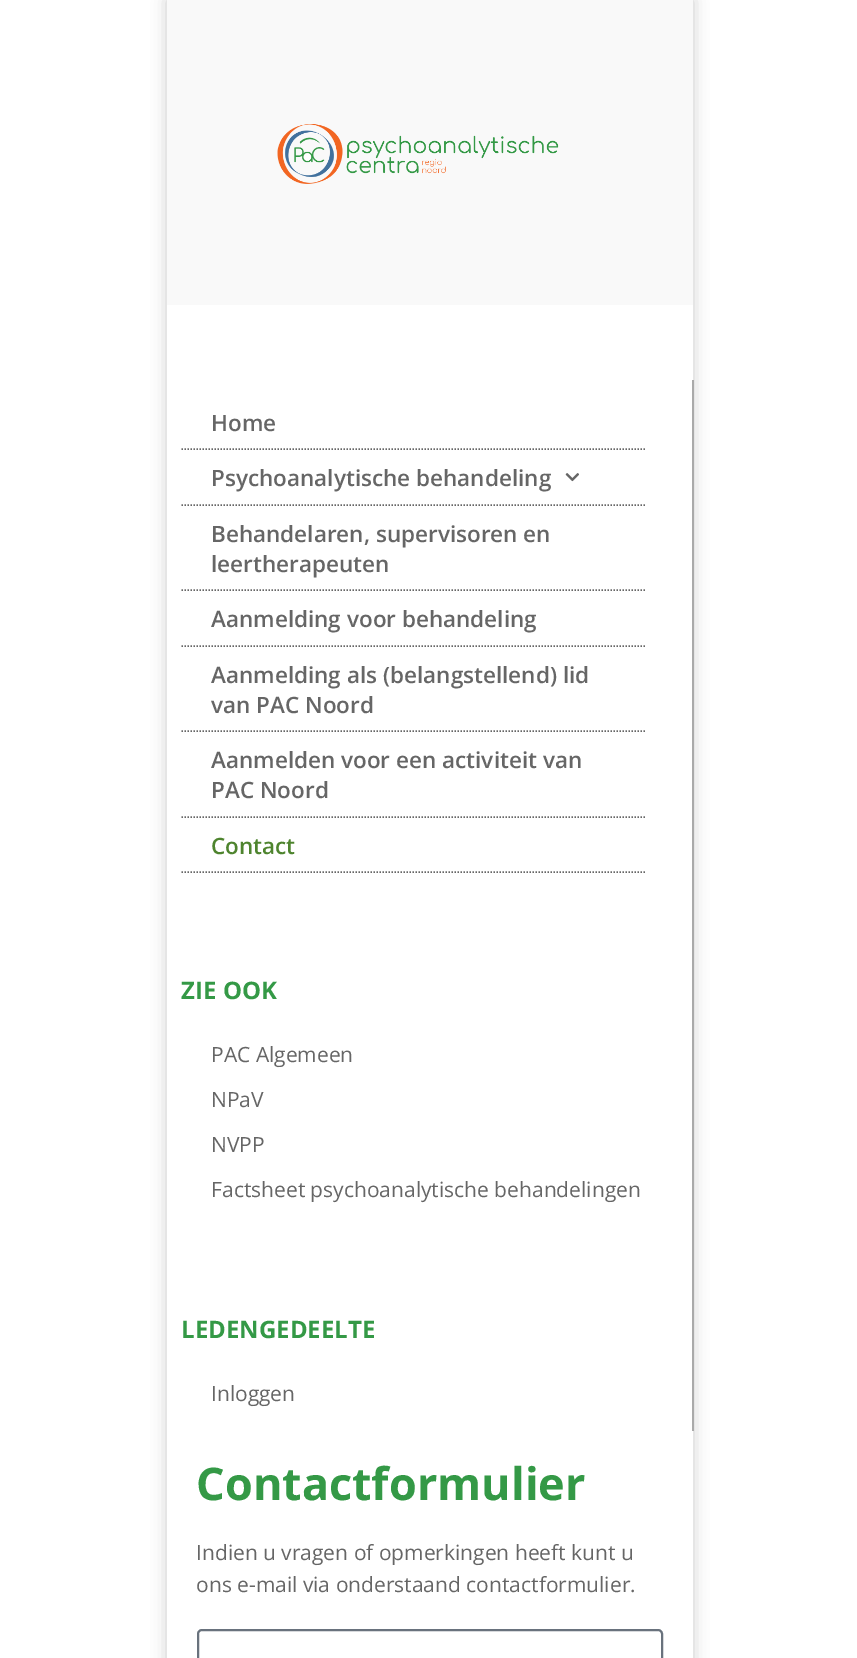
%!PS
<< /PageSize [857 1658] /PageUsesTransparency true >> setpagedevice
/rgb { 3 { 255 div 3 1 roll } repeat setrgbcolor } def
/font { [ exch dup neg 0 0 3 -1 roll 0 0 ] selectfont } def
/alpha { dup .setfillconstantalpha .setstrokeconstantalpha } def
/roundrect { 5 dict begin { /r /h /w /y /x } { exch def } forall
  x r add y moveto x w add y 2 copy h add r arct x w add y h add x 1 index r arct
  x y h add x y r arct x y 2 copy exch w add exch r arct closepath end } def
/shadow { 12 dict begin { /a /b /q /h /w /y /x } { exch def } forall gsave /was 0 def
  9 -2 -9 { dup b mul 4 div /e exch def 1 sub .425 mul 2.718 exch exp 1 add a .99 .min exch div /now exch def
    1 1 now sub 1 was sub div sub alpha /was now def
    w h .min e 2 mul add 0 gt { x e sub y e sub w e 2 mul add h e 2 mul add
      q e add b .6 mul add w h .min 2 div e add .min 0 .max roundrect fill } if } for grestore end } def
/picture { 5 dict begin { /h /w /y /x /name } { exch def } forall
  gsave x y translate w h scale
  w h 8 [w 0 0 h 0 0] name (r) file false 3 colorimage grestore end } def
0 .pushpdf14devicefilter
0 1658 translate 1 -1 scale
4 setmiterlimit
255 255 255 rgb
0 0 857 1658 rectfill
gsave
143 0 moveto 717 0 lineto 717 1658 lineto 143 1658 lineto closepath 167 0 moveto 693 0 lineto 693 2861 lineto 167 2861 lineto closepath eoclip newpath
0 0 0 rgb
167 0 526 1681 0 7.5 0.2 shadow
grestore
249 249 249 rgb
167 0 526 305 rectfill
(img/1.rgb) 277 124 282 60 picture
170 170 170 rgb
692 380 2 1051 rectfill
102 102 102 rgb
1.5 setlinewidth
[1.5 1.5] 0 setdash
181.5 449 moveto 646.5 449 lineto stroke
181.5 505 moveto 646.5 505 lineto stroke
(img/2.rgb) 565 473 14 9 picture
181.5 590 moveto 646.5 590 lineto stroke
181.5 646 moveto 646.5 646 lineto stroke
181.5 731 moveto 646.5 731 lineto stroke
181.5 817 moveto 646.5 817 lineto stroke
181.5 872 moveto 646.5 872 lineto stroke
105 114 125 rgb
2 setlinewidth
[] 0 setdash
198 1630 464 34 4 roundrect stroke
/OpenSans-SemiBold 22.5 font
102 102 102 rgb
[
  [(Home) 211 431]
  [(Psychoanalytische behandeling) 211 486]
  [(Behandelaren, supervisoren en) 211 542]
  [(leertherapeuten) 211 572]
  [(Aanmelding voor behandeling) 211 627]
  [(Aanmelding als \(belangstellend\) lid) 211 683]
  [(van PAC Noord) 211 713]
  [(Aanmelden voor een activiteit van) 211 768]
  [(PAC Noord) 211 798]
] { aload pop moveto show } forall
78 132 46 rgb
211 854 moveto (Contact) show
/OpenSans-Bold 24 font
52 153 70 rgb
181 999 moveto (ZIE OOK) show
/OpenSans-Regular 21 font
102 102 102 rgb
[
  [(PAC Algemeen) 211 1062]
  [(NPaV) 211 1107]
  [(NVPP) 211 1152]
  [(Factsheet psychoanalytische behandelingen) 211 1197]
] { aload pop moveto show } forall
/OpenSans-Bold 24 font
52 153 70 rgb
181 1338 moveto (LEDENGEDEELTE) show
/OpenSans-Regular 21 font
102 102 102 rgb
211 1401 moveto (Inloggen) show
/OpenSans-Bold 45 font
52 153 70 rgb
196 1500 moveto (Contactformulier) show
/OpenSans-Regular 21 font
102 102 102 rgb
196 1560 moveto (Indien u vragen of opmerkingen heeft kunt u) show
196 1592 moveto (ons e-mail via onderstaand contactformulier.) show
.poppdf14devicefilter showpage
